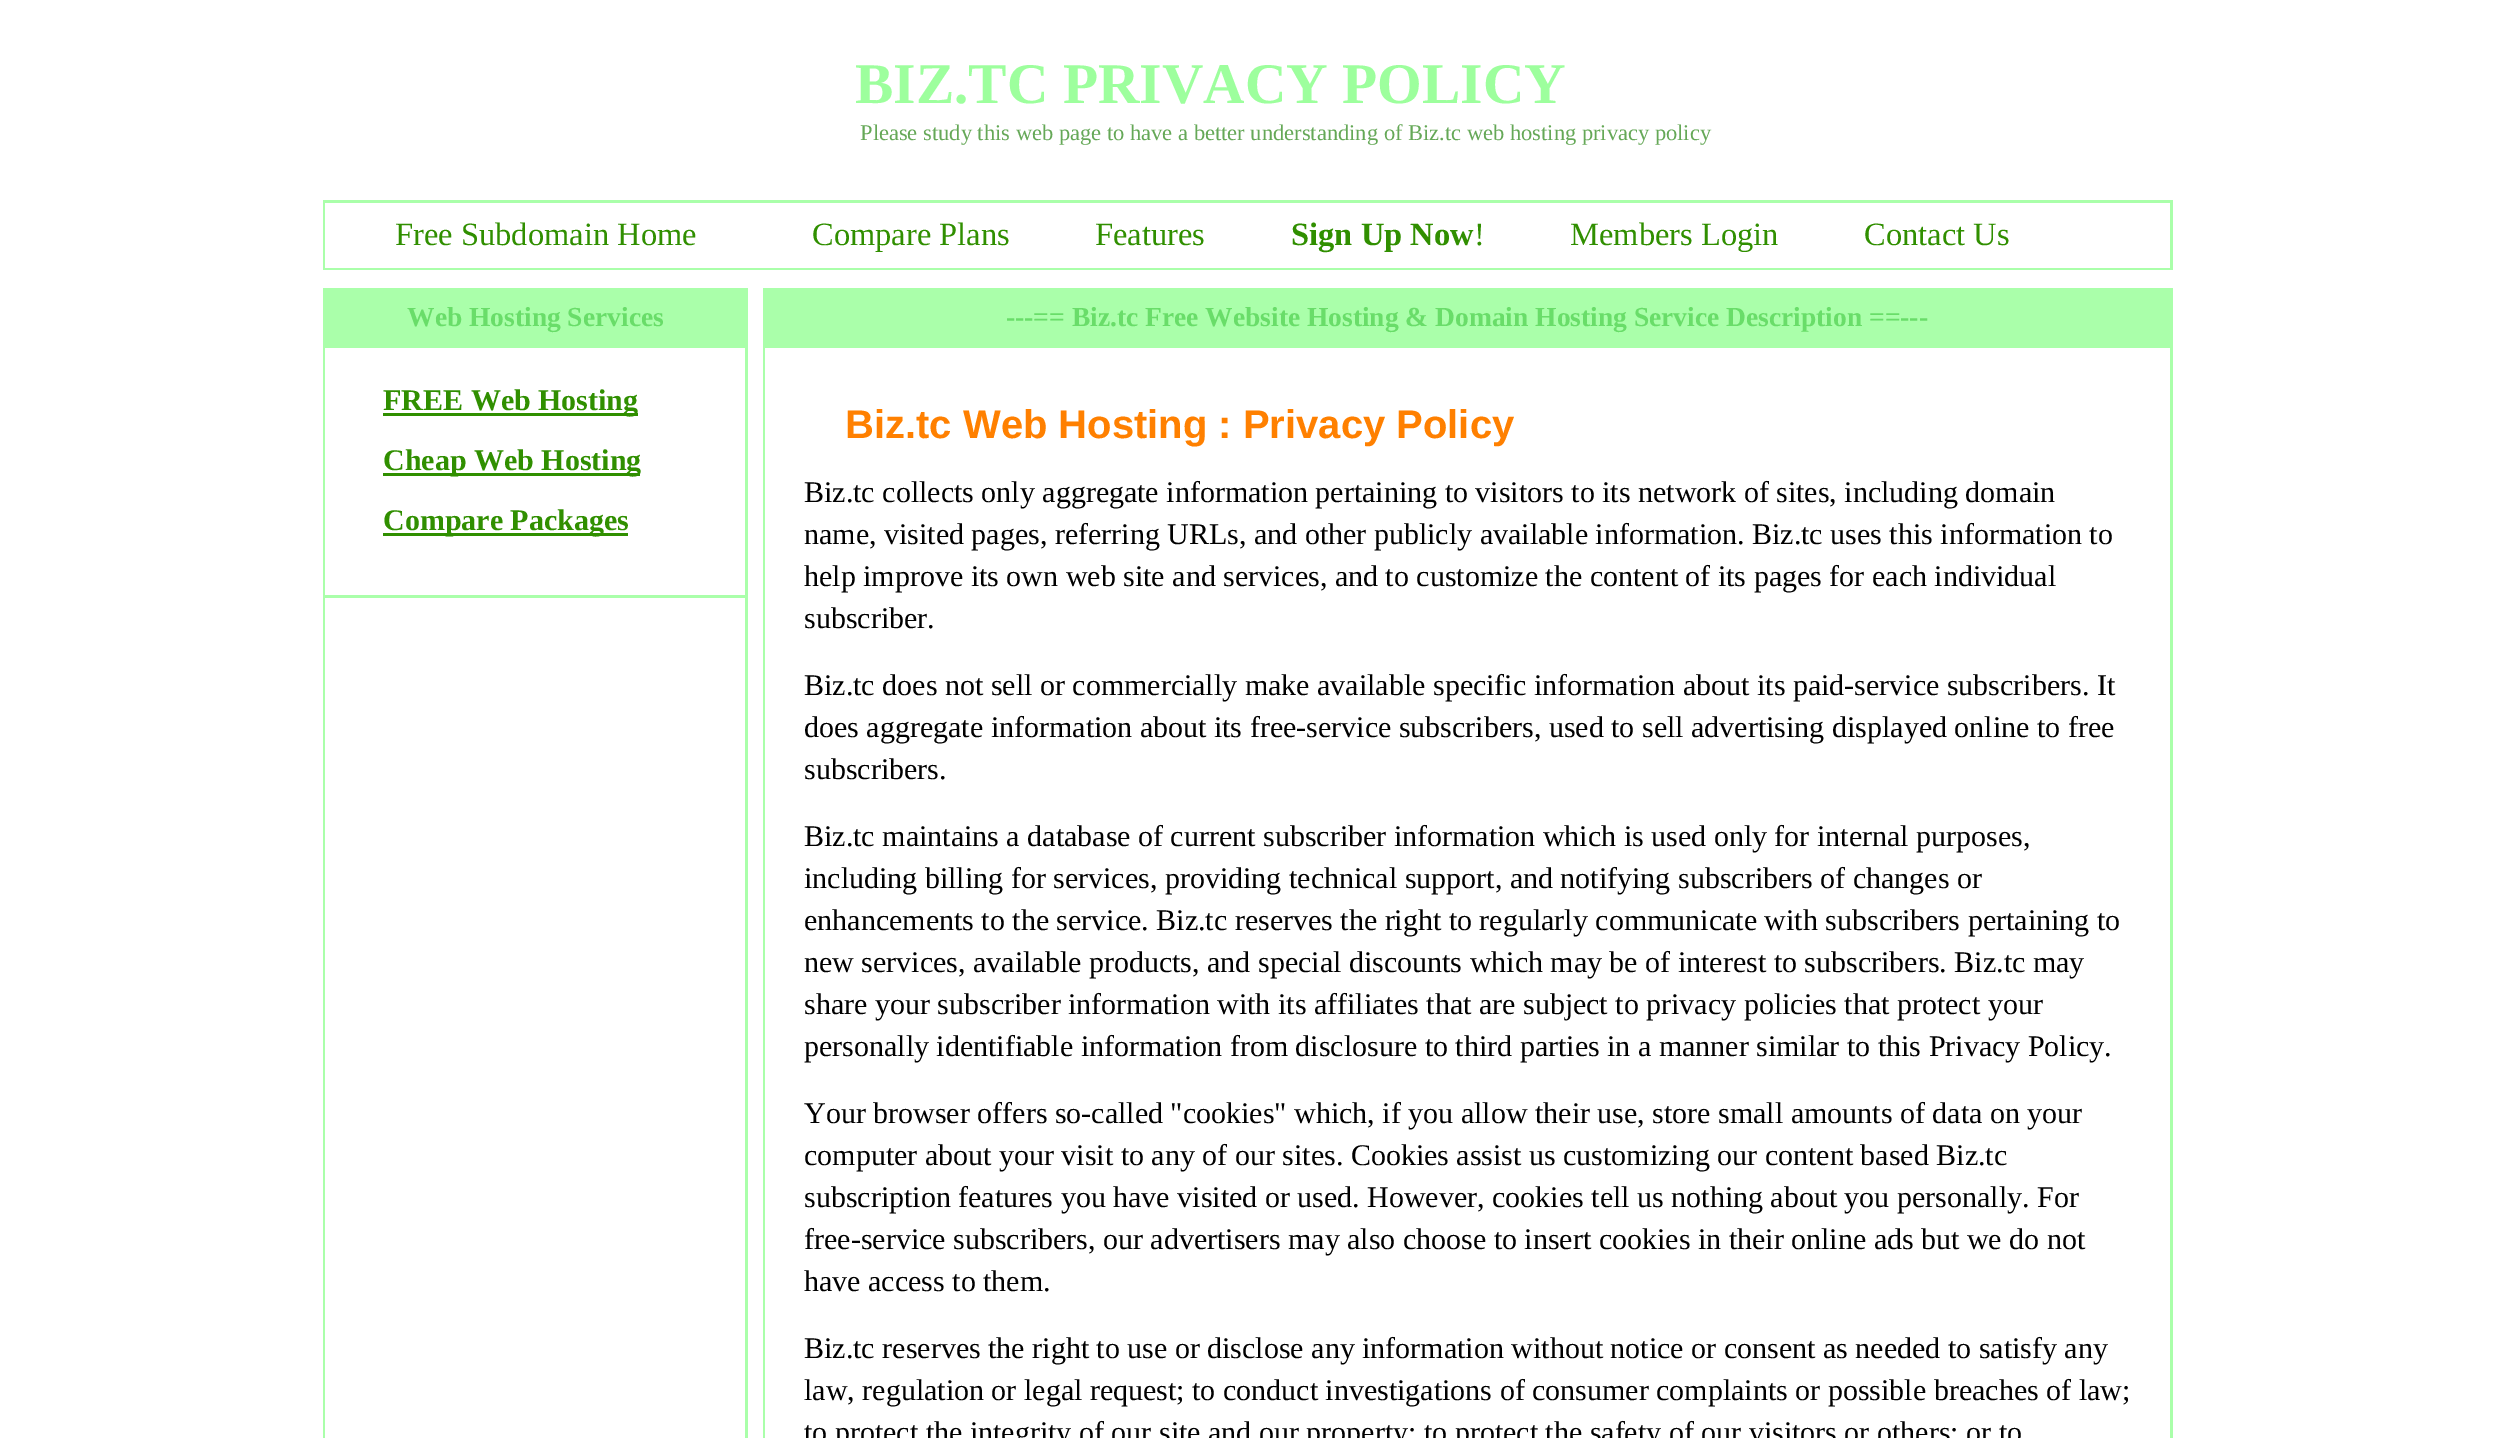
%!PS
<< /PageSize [2493 1438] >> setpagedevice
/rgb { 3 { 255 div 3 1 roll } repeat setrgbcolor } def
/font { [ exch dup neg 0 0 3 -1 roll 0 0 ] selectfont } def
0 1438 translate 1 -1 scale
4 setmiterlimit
255 255 255 rgb
0 0 2493 1438 rectfill
[
  [323 200 1850 70 170 255 170]
  [325 203 1845 65 255 255 255]
  [323 288 425 1150 170 255 170]
  [325 348 420 247 255 255 255]
  [383 413 255 3 48 143 0]
  [383 473 257 3 48 143 0]
  [383 533 245 3 48 143 0]
  [325 598 420 840 255 255 255]
  [763 288 1410 1150 170 255 170]
  [765 348 1405 1090 255 255 255]
] { aload pop rgb rectfill } forall
/LiberationSerif-Bold 57.5 font
157 255 157 rgb
855 103 moveto (BIZ.TC PRIVACY POLICY) show
/LiberationSerif-Regular 22.5 font
101 168 87 rgb
860 140 moveto (Please study this web page to have a better understanding of Biz.tc web hosting privacy policy) show
/LiberationSerif-Regular 32.5 font
48 143 0 rgb
[
  [(Free Subdomain Home) 395 245]
  [(Compare Plans) 812 245]
  [(Features) 1095 245]
] { aload pop moveto show } forall
/LiberationSerif-Bold 32.5 font
1291 245 moveto (Sign Up Now) show
/LiberationSerif-Regular 32.5 font
[
  [(!) 1474 245]
  [(Members Login) 1570 245]
  [(Contact Us) 1864 245]
] { aload pop moveto show } forall
/LiberationSerif-Bold 27.5 font
105 221 105 rgb
407 326 moveto (Web Hosting Services) show
/LiberationSerif-Bold 30 font
48 143 0 rgb
[
  [(FREE Web Hosting) 383 410]
  [(Cheap Web Hosting) 383 470]
  [(Compare Packages) 383 530]
] { aload pop moveto show } forall
/LiberationSerif-Bold 27.5 font
105 221 105 rgb
1006 326 moveto (---== Biz.tc Free Website Hosting & Domain Hosting Service Description ==---) show
/LiberationSans-Bold 40 font
255 128 0 rgb
845 438 moveto (Biz.tc Web Hosting : Privacy Policy) show
/LiberationSerif-Regular 30 font
0 0 0 rgb
[
  [(Biz.tc collects only aggregate information pertaining to visitors to its network of sites, including domain) 804 502]
  [(name, visited pages, referring URLs, and other publicly available information. Biz.tc uses this information to) 804 544]
  [(help improve its own web site and services, and to customize the content of its pages for each individual) 804 586]
  [(subscriber.) 804 628]
  [(Biz.tc does not sell or commercially make available specific information about its paid-service subscribers. It) 804 695]
  [(does aggregate information about its free-service subscribers, used to sell advertising displayed online to free) 804 737]
  [(subscribers.) 804 779]
  [(Biz.tc maintains a database of current subscriber information which is used only for internal purposes,) 804 846]
  [(including billing for services, providing technical support, and notifying subscribers of changes or) 804 888]
  [(enhancements to the service. Biz.tc reserves the right to regularly communicate with subscribers pertaining to) 804 930]
  [(new services, available products, and special discounts which may be of interest to subscribers. Biz.tc may) 804 972]
  [(share your subscriber information with its affiliates that are subject to privacy policies that protect your) 804 1014]
  [(personally identifiable information from disclosure to third parties in a manner similar to this Privacy Policy.) 804 1056]
  [(Your browser offers so-called "cookies" which, if you allow their use, store small amounts of data on your) 804 1123]
  [(computer about your visit to any of our sites. Cookies assist us customizing our content based Biz.tc) 804 1165]
  [(subscription features you have visited or used. However, cookies tell us nothing about you personally. For) 804 1207]
  [(free-service subscribers, our advertisers may also choose to insert cookies in their online ads but we do not) 804 1249]
  [(have access to them.) 804 1291]
  [(Biz.tc reserves the right to use or disclose any information without notice or consent as needed to satisfy any) 804 1358]
  [(law, regulation or legal request; to conduct investigations of consumer complaints or possible breaches of law;) 804 1400]
  [(to protect the integrity of our site and our property; to protect the safety of our visitors or others; or to) 804 1442]
] { aload pop moveto show } forall
showpage
